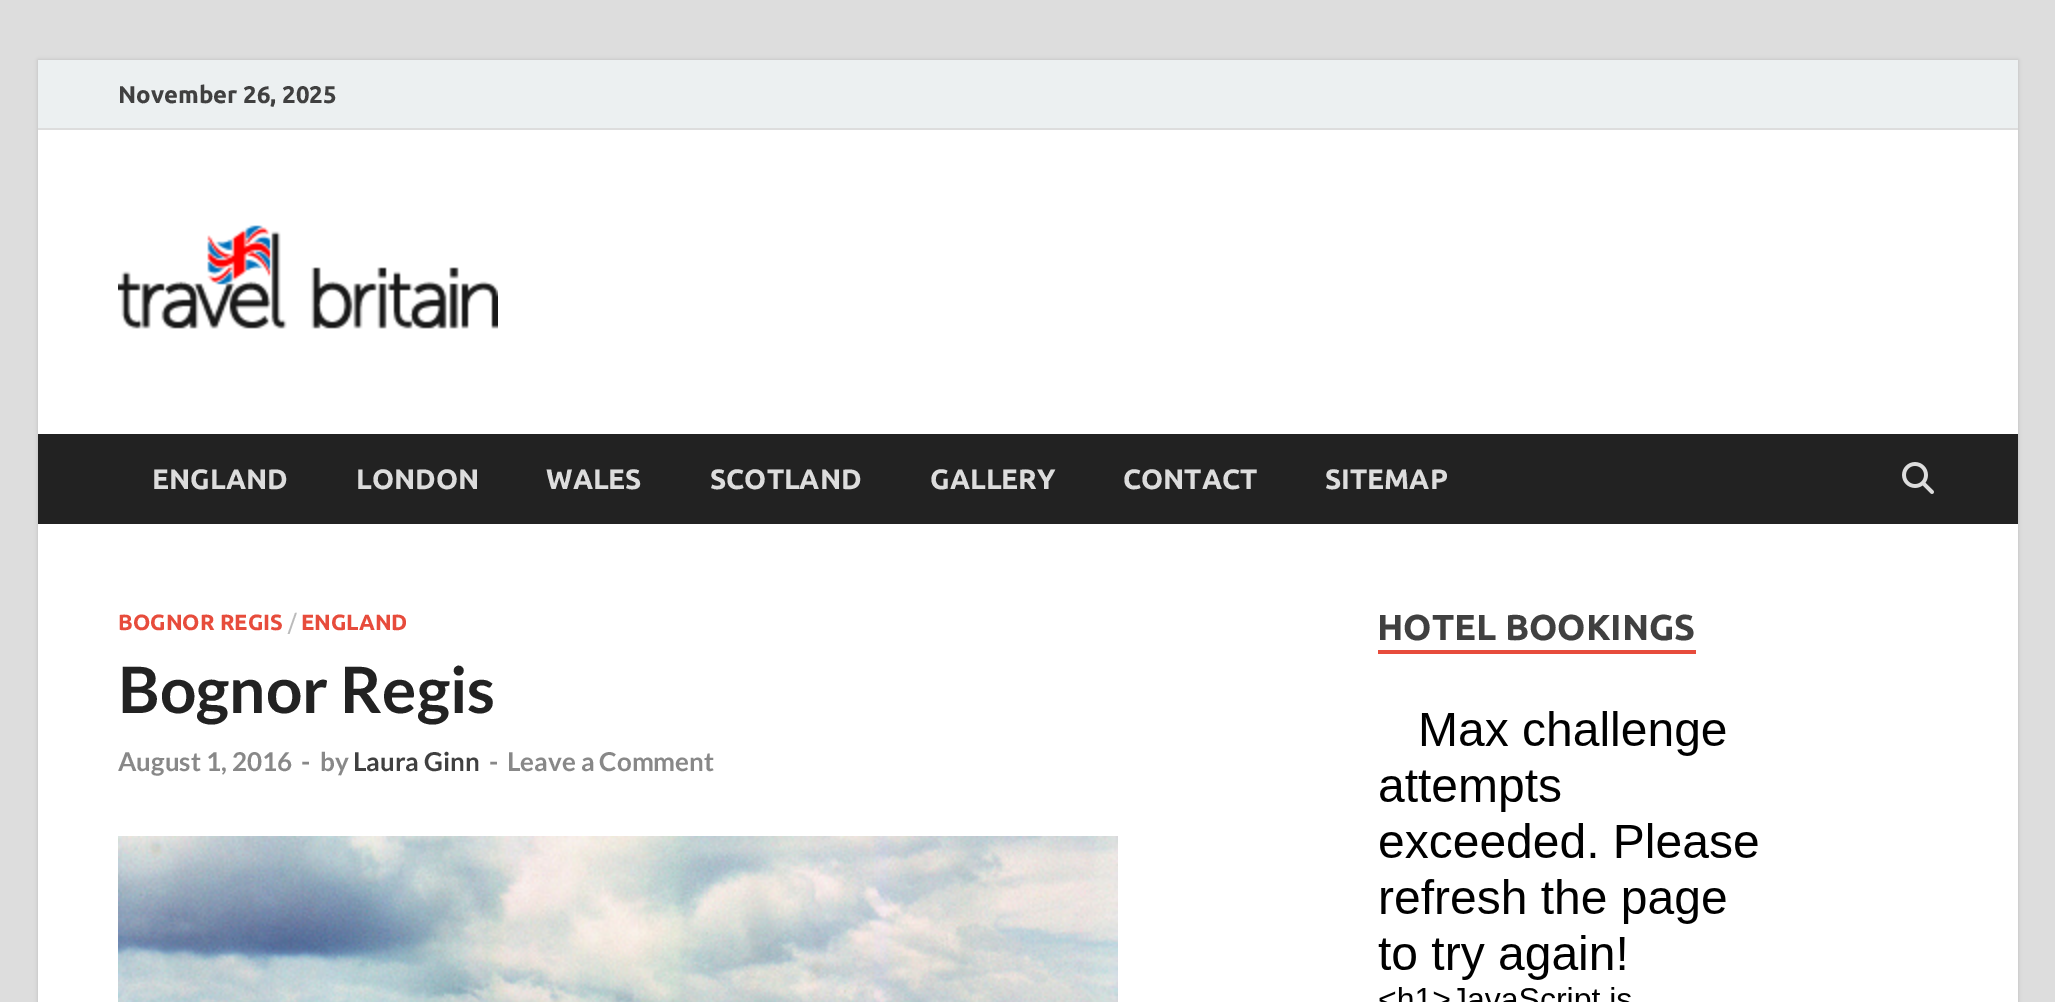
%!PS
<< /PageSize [2055 1002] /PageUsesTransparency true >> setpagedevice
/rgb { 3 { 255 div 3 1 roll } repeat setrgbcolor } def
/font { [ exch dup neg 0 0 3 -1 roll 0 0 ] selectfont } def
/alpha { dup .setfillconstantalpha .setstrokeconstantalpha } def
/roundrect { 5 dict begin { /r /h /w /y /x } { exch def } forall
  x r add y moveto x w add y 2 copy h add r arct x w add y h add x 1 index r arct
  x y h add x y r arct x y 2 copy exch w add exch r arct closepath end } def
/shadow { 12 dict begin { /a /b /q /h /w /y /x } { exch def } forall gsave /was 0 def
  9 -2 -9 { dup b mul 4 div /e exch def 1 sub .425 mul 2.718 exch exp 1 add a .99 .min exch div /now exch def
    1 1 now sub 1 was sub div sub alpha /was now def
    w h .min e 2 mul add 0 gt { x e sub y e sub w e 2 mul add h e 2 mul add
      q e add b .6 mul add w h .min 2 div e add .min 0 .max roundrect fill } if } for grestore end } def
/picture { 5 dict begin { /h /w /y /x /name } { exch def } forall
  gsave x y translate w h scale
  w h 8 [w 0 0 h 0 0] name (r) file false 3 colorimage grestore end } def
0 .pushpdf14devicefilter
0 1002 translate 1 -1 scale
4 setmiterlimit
221 221 221 rgb
0 0 2055 1002 rectfill
187 187 187 rgb
38 60 1980 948 0 2 1 shadow
[
  [38 130 1980 872 255 255 255]
  [38 60 1980 68 236 240 241]
  [38 128 1980 2 221 221 221]
] { aload pop rgb rectfill } forall
(img/1.rgb) 118 225 380 104 picture
34 34 34 rgb
38 434 1980 90 rectfill
(img/2.rgb) 1902 462 32 32 picture
(img/3.rgb) 118 836 1000 166 picture
231 76 60 rgb
1378 650 318 4 rectfill
(img/4.rgb) 1378 711 380 291 picture
/Ubuntu-Bold 24 font
64 64 64 rgb
118 103 moveto (November 26, 2025) show
/Ubuntu-Bold 28 font
221 221 221 rgb
[
  [(ENGLAND) 152 489]
  [(LONDON) 356 489]
  [(WALES) 546 489]
  [(SCOTLAND) 710 489]
  [(GALLERY) 930 489]
  [(CONTACT) 1123 489]
  [(SITEMAP) 1325 489]
] { aload pop moveto show } forall
/Ubuntu-Bold 22 font
231 76 60 rgb
118 630 moveto (BOGNOR REGIS) show
/Ubuntu-Regular 22 font
187 187 187 rgb
288 630 moveto (/) show
/Ubuntu-Bold 22 font
231 76 60 rgb
301 630 moveto (ENGLAND) show
/Lato-Bold 64 font
34 34 34 rgb
118 713 moveto (Bognor Regis) show
/Lato-Bold 26 font
136 136 136 rgb
[
  [(August 1, 2016) 118 771]
  [(-) 301 771]
  [(by) 320 771]
] { aload pop moveto show } forall
64 64 64 rgb
353 771 moveto (Laura Ginn) show
136 136 136 rgb
489 771 moveto (-) show
507 771 moveto (Leave a Comment) show
/Ubuntu-Bold 36 font
64 64 64 rgb
1377 640 moveto (HOTEL BOOKINGS) show
.poppdf14devicefilter showpage
